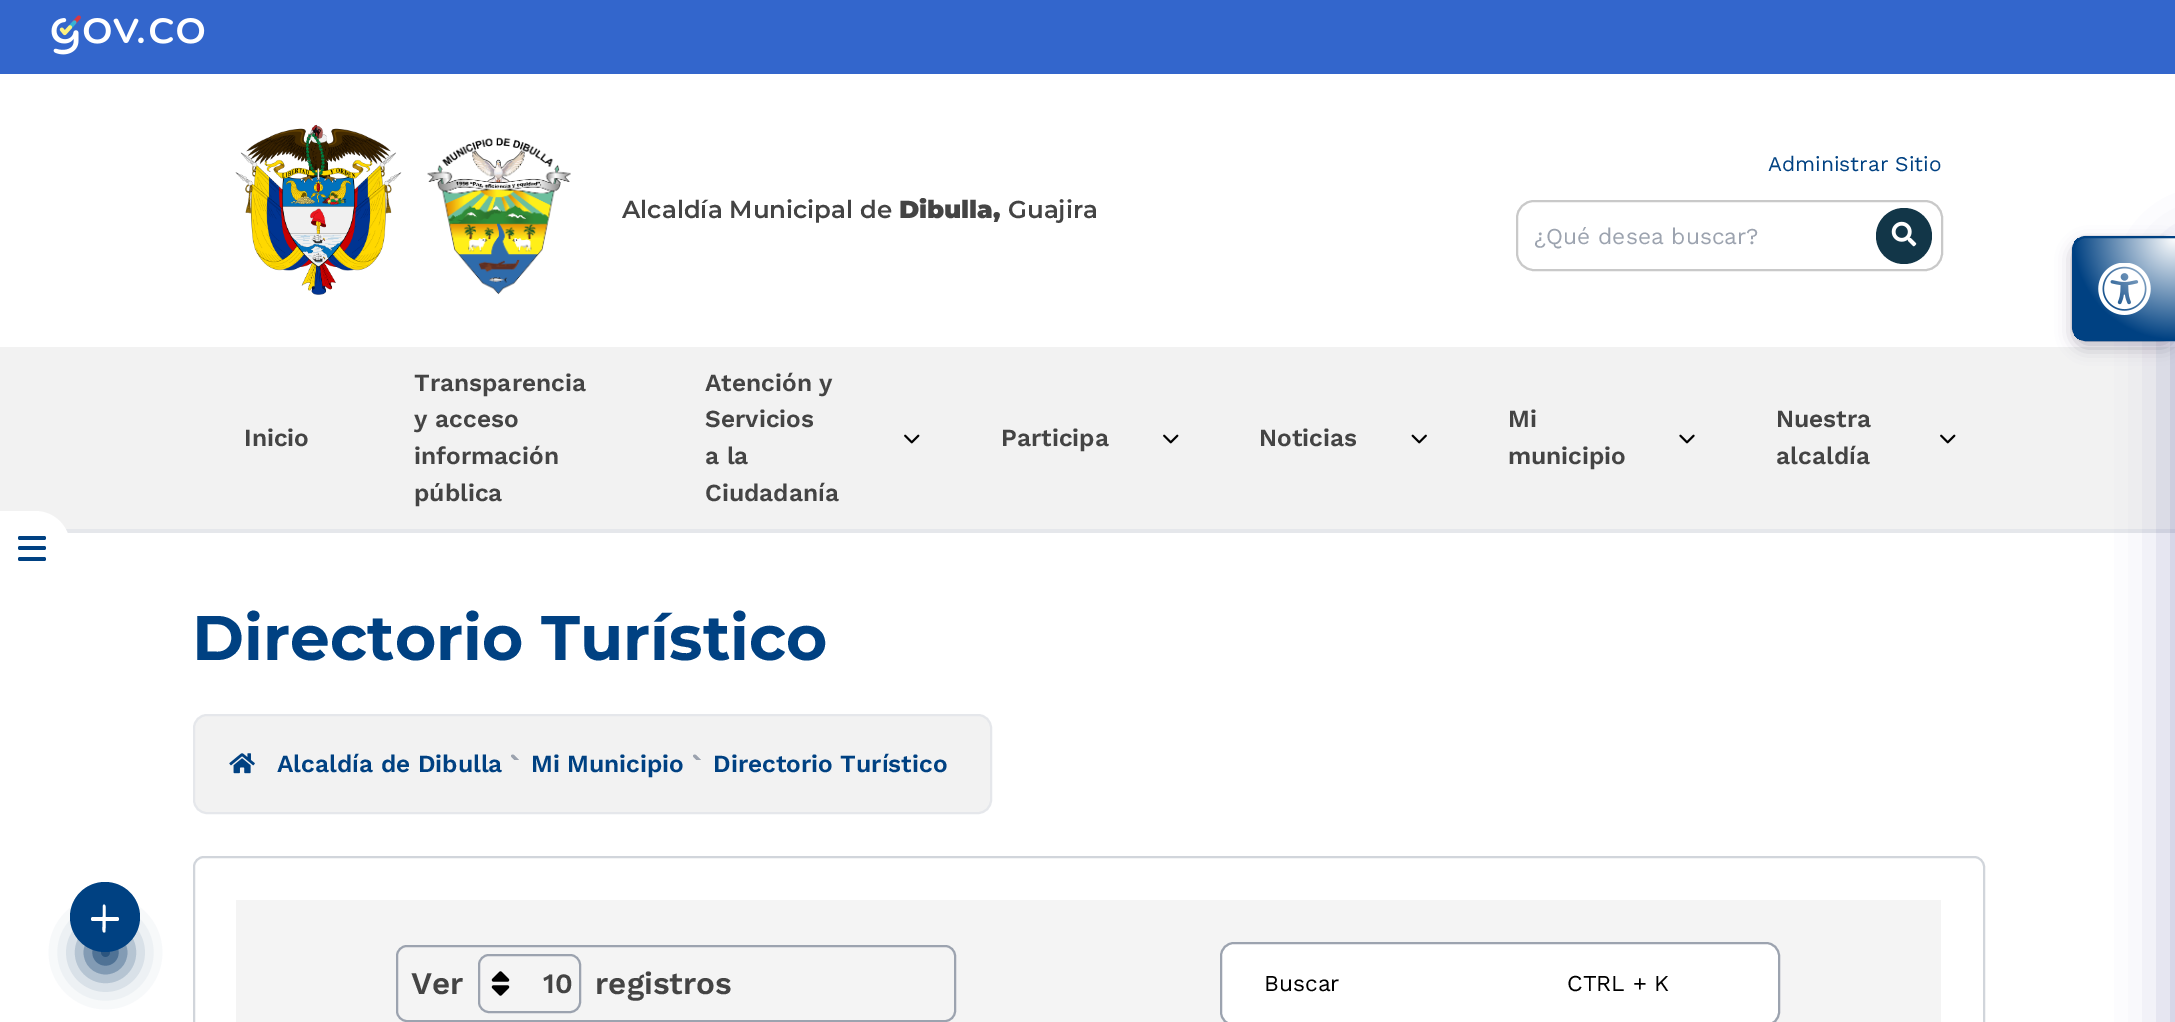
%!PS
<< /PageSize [2175 1022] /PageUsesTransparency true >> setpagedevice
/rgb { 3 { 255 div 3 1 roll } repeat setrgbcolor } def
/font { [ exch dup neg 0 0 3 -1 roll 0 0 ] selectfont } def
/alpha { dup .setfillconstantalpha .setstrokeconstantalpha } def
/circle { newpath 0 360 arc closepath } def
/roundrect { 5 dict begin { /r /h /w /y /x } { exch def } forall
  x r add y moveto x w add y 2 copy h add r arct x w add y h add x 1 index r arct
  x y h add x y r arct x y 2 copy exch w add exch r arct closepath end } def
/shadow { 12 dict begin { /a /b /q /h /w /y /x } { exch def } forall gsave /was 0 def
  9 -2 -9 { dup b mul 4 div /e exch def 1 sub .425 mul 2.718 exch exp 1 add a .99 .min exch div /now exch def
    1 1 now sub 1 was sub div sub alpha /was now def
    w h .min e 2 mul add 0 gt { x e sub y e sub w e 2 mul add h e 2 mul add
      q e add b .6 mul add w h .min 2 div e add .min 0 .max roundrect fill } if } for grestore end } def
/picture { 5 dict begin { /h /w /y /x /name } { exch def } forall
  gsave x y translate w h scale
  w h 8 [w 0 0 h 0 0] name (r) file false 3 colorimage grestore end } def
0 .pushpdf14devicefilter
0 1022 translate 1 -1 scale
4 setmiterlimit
255 255 255 rgb
0 0 2175 1022 rectfill
242 242 242 rgb
0 347 2175 182 rectfill
229 231 235 rgb
65 529 2110 4 rectfill
255 255 255 rgb
0 511 moveto 35 511 lineto 54.5 511 70 526.5 70 546 curveto 70 565.5 54.5 581 35 581 curveto 0 581 lineto closepath fill
0 65 130 rgb
18 536 28 4 2 roundrect fill
18 546 28 4 2 roundrect fill
18 557 28 4 2 roundrect fill
1 51 102 rgb
88 935 35 35 17.5 17.5 1 shadow
0 65 130 rgb
105 917 35 circle fill
255 255 255 rgb
105.5 906 moveto 105.5 909 106 931.5 105 932.5 curveto 104 932.5 lineto 102 932.5 102.5 927.5 102.5 927 curveto 103 905.5 lineto 103 904.5 104.5 904.5 105 905 curveto closepath fill
91 917 28 4 2 roundrect fill
51 102 204 rgb
0 0 2175 74 rectfill
(img/1.rgb) 51 15 154 40 picture
(img/2.rgb) 235 124 167 171 picture
(img/3.rgb) 427 137 144 158 picture
201 201 201 rgb
2 setlinewidth
1517 201 425 69 17 roundrect stroke
18 54 72 rgb
1904 236 28 circle fill
(img/4.rgb) 1891 221 26 26 picture
(img/5.rgb) 904 434 16 10 picture
(img/5.rgb) 1163 434 16 10 picture
(img/6.rgb) 1411 434 16 10 picture
(img/7.rgb) 1679 434 16 10 picture
(img/5.rgb) 1940 434 16 10 picture
242 242 242 rgb
194 715 797 98 13 roundrect gsave fill grestore
229 231 235 rgb
stroke
(img/8.rgb) 229 753 26 21 picture
(img/9.rgb) 511 754 8 6 picture
(img/9.rgb) 693 754 8 6 picture
209 213 219 rgb
194 857 1790 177 10 roundrect stroke
244 244 244 rgb
236 900 1705 122 rectfill
156 163 175 rgb
397 946 558 75 10 roundrect stroke
479 955 101 57 10 roundrect stroke
(img/10.rgb) 491 971 19 25 picture
255 255 255 rgb
1221 943 558 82 13 roundrect gsave fill grestore
156 163 175 rgb
stroke
31 38 135 rgb
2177 250 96 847 14 28 0.37 shadow
45 35 66 rgb
2072 243 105 105 14 8 0.3 shadow
2072 236 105 105 14 0.5 0.4 shadow
gsave
2086 236 moveto 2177 236 lineto 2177 341 lineto 2086 341 lineto 2078.5 341 2072 334.5 2072 327 curveto 2072 250 lineto 2072 242.5 2078.5 236 2086 236 curveto closepath clip newpath
gsave 2074 238 moveto 2175 238 lineto 2175 340 lineto 2074 340 lineto closepath clip newpath 2175 238 translate 102 102 scale
<< /ShadingType 3 /ColorSpace /DeviceRGB /Coords [0 0 0 0 0 1] /Extend [true true] /Function << /FunctionType 2 /Domain [0 1] /C0 [1 1 1] /C1 [0 0.255 0.51] /N 1 >> >> shfill grestore
grestore
0 65 130 rgb
2086 237 moveto 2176 237 lineto 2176 340 lineto 2086 340 lineto 2079 340 2073 334 2073 327 curveto 2073 250 lineto 2073 243 2079 237 2086 237 curveto closepath stroke
(img/11.rgb) 2098 263 53 52 picture
/Montserrat-SemiBold 24.5 font
68 68 68 rgb
622 218 moveto (Alcaldía Municipal de) show
/Montserrat-Black 24.5 font
899 218 moveto (Dibulla,) show
/Montserrat-SemiBold 24.5 font
1008 218 moveto (Guajira) show
/WorkSans-Regular 21 font
0 65 130 rgb
1768 171 moveto (Administrar Sitio) show
/WorkSans-Regular 22.75 font
156 163 175 rgb
1534 244 moveto (¿Qué desea buscar?) show
/WorkSans-SemiBold 24.5 font
68 68 68 rgb
[
  [(Inicio) 244 446]
  [(Transparencia) 414 391]
  [(y acceso) 414 427]
  [(información) 414 464]
  [(pública) 414 501]
  [(Atención y) 705 391]
  [(Servicios) 705 427]
  [(a la) 705 464]
  [(Ciudadanía) 705 501]
  [(Participa) 1001 446]
  [(Noticias) 1259 446]
  [(Mi) 1508 427]
  [(municipio) 1508 464]
  [(Nuestra) 1776 427]
  [(alcaldía) 1776 464]
] { aload pop moveto show } forall
/Montserrat-Bold 63 font
0 65 130 rgb
192 660 moveto (Directorio Turístico) show
/WorkSans-SemiBold 24.5 font
[
  [(Alcaldía de Dibulla) 277 772]
  [(Mi Municipio) 531 772]
  [(Directorio Turístico) 713 772]
] { aload pop moveto show } forall
/WorkSans-SemiBold 31.5 font
68 68 68 rgb
411 994 moveto (Ver) show
/WorkSans-SemiBold 28 font
543 993 moveto (10) show
/WorkSans-SemiBold 31.5 font
595 994 moveto (registros) show
/WorkSans-Regular 22.75 font
0 0 0 rgb
1264 991 moveto (Buscar) show
1567 991 moveto (CTRL + K) show
.poppdf14devicefilter showpage
